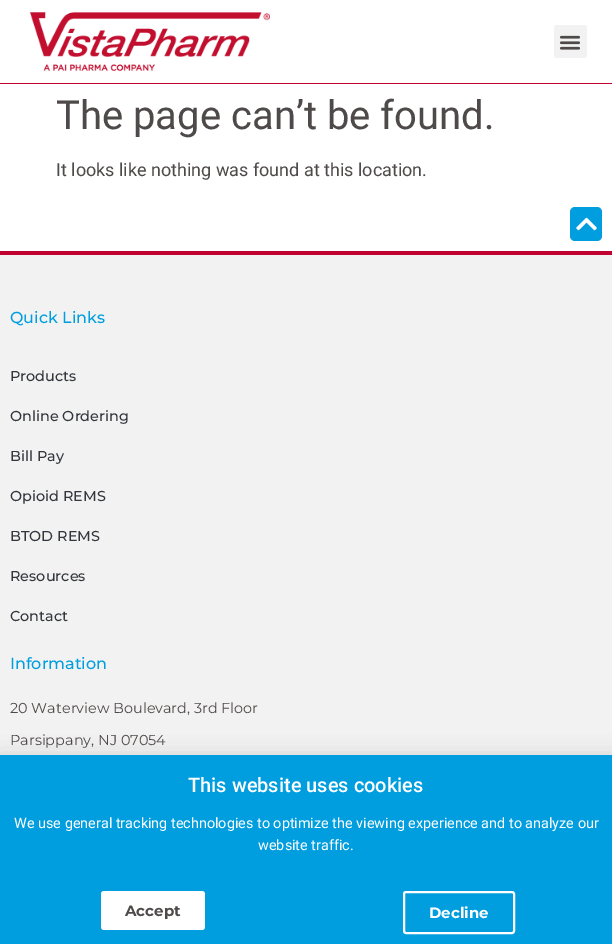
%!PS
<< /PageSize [612 944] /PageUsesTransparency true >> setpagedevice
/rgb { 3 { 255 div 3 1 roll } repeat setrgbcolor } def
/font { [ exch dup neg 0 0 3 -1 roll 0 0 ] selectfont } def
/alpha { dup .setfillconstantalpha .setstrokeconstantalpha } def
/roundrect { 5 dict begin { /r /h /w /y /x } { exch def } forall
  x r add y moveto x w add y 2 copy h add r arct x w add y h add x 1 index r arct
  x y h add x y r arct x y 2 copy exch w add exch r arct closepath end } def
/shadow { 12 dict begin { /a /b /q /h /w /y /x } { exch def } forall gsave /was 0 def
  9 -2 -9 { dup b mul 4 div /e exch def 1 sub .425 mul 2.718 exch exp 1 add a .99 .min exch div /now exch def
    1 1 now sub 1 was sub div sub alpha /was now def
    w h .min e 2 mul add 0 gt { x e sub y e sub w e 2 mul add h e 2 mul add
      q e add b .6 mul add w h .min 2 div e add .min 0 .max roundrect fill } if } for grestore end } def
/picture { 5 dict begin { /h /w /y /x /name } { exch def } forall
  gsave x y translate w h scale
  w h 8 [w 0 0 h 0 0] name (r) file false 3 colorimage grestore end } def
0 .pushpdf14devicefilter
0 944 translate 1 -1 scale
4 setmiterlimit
255 255 255 rgb
0 0 612 944 rectfill
193 2 48 rgb
0 83 612 1 rectfill
(img/1.rgb) 30 12 240 59 picture
242 242 242 rgb
554 25 33 33 3 roundrect fill
(img/2.rgb) 559 35 22 15 picture
0 158 222 rgb
570 207 32 34 5 roundrect fill
(img/3.rgb) 576 217 21 14 picture
242 242 242 rgb
0 255 612 500 rectfill
193 2 48 rgb
0 251 612 4 rectfill
0 0 0 rgb
-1 760 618 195 0 11.5 0.2 shadow
0 158 222 rgb
0 755 612 189 rectfill
255 255 255 rgb
101 891 104 39 3 roundrect fill
2 setlinewidth
404 892 110 41 2 roundrect stroke
/Roboto-Regular 40 font
79 74 74 rgb
56 129 moveto (The page can’t be found.) show
/Roboto-Regular 18 font
56 176 moveto (It looks like nothing was found at this location.) show
/Montserrat-Medium 16 font
0 158 222 rgb
10 323 moveto (Quick Links) show
/Montserrat-Medium 14.4 font
51 55 61 rgb
[
  [(Products) 10 381]
  [(Online Ordering) 10 421]
  [(Bill Pay) 10 461]
  [(Opioid REMS) 10 501]
  [(BTOD REMS) 10 541]
  [(Resources) 10 581]
  [(Contact) 10 621]
] { aload pop moveto show } forall
/Montserrat-Medium 16 font
0 158 222 rgb
10 669 moveto (Information) show
/Montserrat-Regular 14.4 font
79 74 74 rgb
10 713 moveto (20 Waterview Boulevard, 3rd Floor) show
10 745 moveto (Parsippany, NJ 07054) show
/Roboto-Medium 20 font
255 255 255 rgb
188 792 moveto (This website uses cookies) show
/Roboto-Regular 14.4 font
14 828 moveto (We use general tracking technologies to optimize the viewing experience and to analyze our) show
258 850 moveto (website traffic.) show
/Montserrat-Bold 15 font
79 74 74 rgb
125 916 moveto (Accept) show
255 255 255 rgb
429 918 moveto (Decline) show
.poppdf14devicefilter showpage
